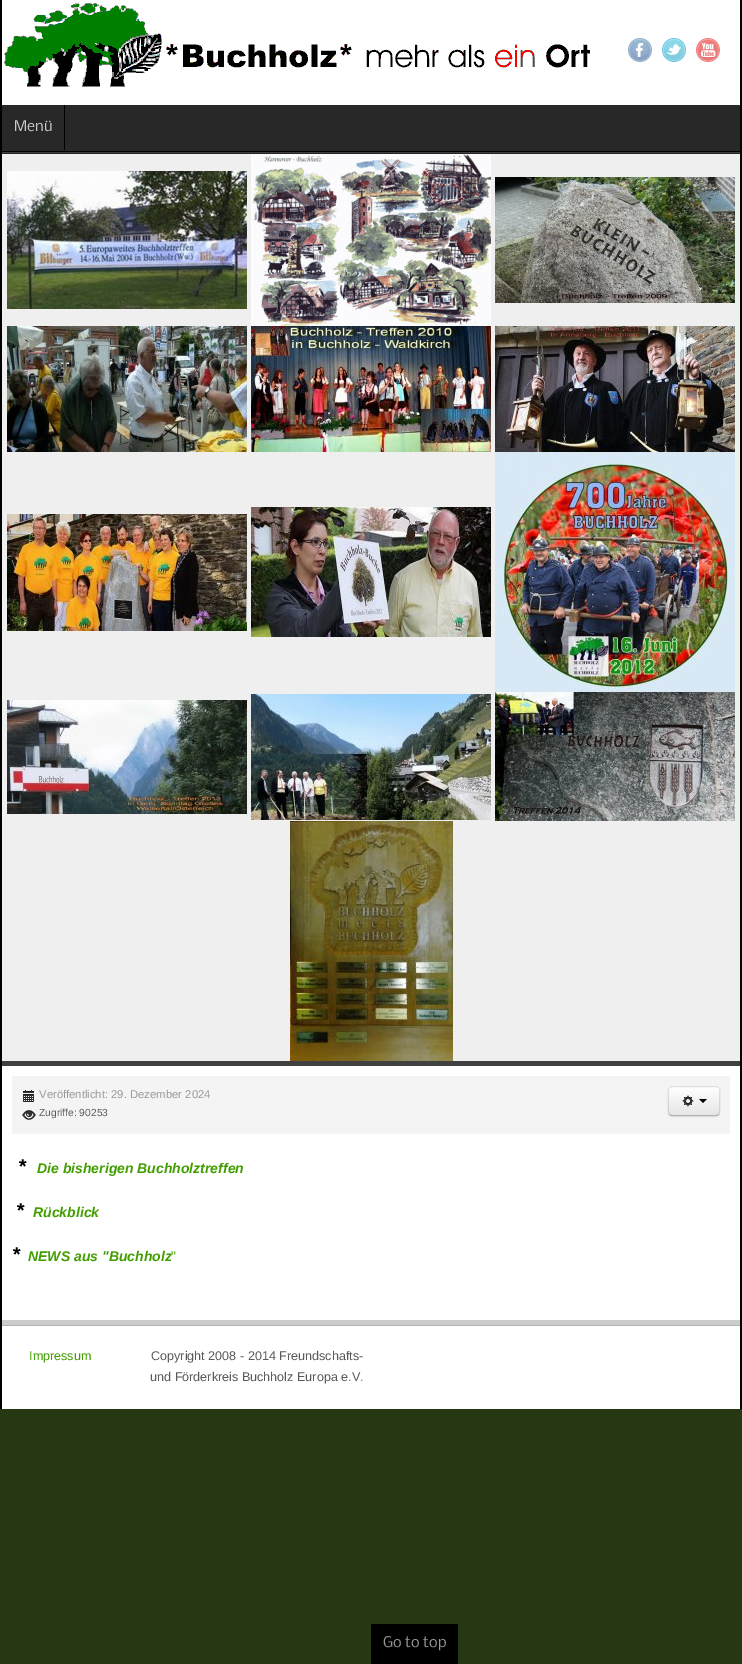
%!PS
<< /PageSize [742 1664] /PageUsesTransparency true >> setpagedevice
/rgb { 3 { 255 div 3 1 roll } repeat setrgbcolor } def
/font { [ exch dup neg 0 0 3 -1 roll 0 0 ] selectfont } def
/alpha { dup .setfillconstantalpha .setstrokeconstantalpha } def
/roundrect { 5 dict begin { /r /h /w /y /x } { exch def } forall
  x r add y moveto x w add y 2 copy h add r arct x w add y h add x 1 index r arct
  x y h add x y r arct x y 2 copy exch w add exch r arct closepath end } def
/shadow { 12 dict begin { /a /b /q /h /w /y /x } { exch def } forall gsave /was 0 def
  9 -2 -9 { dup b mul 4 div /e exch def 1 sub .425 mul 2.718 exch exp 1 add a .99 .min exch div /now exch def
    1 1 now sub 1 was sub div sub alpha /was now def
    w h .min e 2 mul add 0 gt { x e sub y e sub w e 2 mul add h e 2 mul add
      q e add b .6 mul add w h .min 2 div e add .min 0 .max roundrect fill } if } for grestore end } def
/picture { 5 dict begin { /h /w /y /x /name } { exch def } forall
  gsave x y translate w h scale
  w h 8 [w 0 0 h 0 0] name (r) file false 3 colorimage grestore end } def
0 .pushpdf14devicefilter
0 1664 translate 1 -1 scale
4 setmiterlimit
37 56 19 rgb
0 0 742 1664 rectfill
[
  [740 0 2 1409 0 0 0]
  [0 0 2 1409 0 0 0]
  [2 0 738 1409 255 255 255]
] { aload pop rgb rectfill } forall
(img/1.rgb) 4 3 586 84 picture
(img/2.rgb) 628 38 24 24 picture
(img/3.rgb) 662 38 24 24 picture
(img/4.rgb) 696 38 24 24 picture
40 40 40 rgb
2 105 738 46 rectfill
0 0 0 rgb
64 105 1 45 rectfill
(img/5.rgb) 2 151 738 3 picture
64 64 64 rgb
2 1061 738 5 rectfill
239 239 239 rgb
2 154 738 907 rectfill
(img/6.rgb) 7 171 240 138 picture
(img/7.rgb) 251 154 240 172 picture
(img/8.rgb) 495 177 240 126 picture
(img/9.rgb) 7 326 240 126 picture
(img/10.rgb) 251 326 240 126 picture
(img/11.rgb) 495 326 240 126 picture
(img/12.rgb) 7 514 240 117 picture
(img/13.rgb) 251 507 240 130 picture
(img/14.rgb) 495 452 240 240 picture
(img/15.rgb) 7 700 240 114 picture
(img/16.rgb) 251 694 240 126 picture
(img/17.rgb) 495 692 240 129 picture
(img/18.rgb) 290 821 163 240 picture
204 204 204 rgb
2 1320 738 5 rectfill
244 244 244 rgb
12 1076 718 58 rectfill
(img/19.rgb) 23 1090 11 12 picture
(img/20.rgb) 22 1110 14 10 picture
0 0 0 rgb
668 1087 52 30 4 1 0.05 shadow
245 245 245 rgb
668 1086 52 30 4 roundrect fill
gsave
668 1086 52 30 4 roundrect clip newpath
gsave 668 1087 moveto 720 1087 lineto 720 1115 lineto 668 1115 lineto closepath clip newpath
<< /ShadingType 2 /ColorSpace /DeviceRGB /Coords [694 1087 694 1115] /Extend [true true] /Function << /FunctionType 2 /Domain [0 1] /C0 [1 1 1] /C1 [0.902 0.902 0.902] /N 1 >> >> shfill grestore
grestore
255 255 255 rgb
672 1088 moveto 716 1088 lineto 718 1088 719 1089 719 1091 curveto 719 1085 713 1087 709 1087 curveto 679 1087 lineto 675 1087 669 1085 669 1091 curveto 669 1089 670 1088 672 1088 curveto closepath fill
179 179 179 rgb
718.5 1114.5 moveto 718 1115 717 1115.5 716 1115.5 curveto 672 1115.5 lineto 671 1115.5 670 1115 669.5 1114.5 curveto stroke
0.1 alpha
0 0 0 rgb
669.5 1114.5 moveto 667.5 1112.5 668.5 1104 668.5 1101 curveto 668.5 1086.5 665.5 1086.5 679.5 1086.5 curveto 708.5 1086.5 lineto 722.5 1086.5 719.5 1086.5 719.5 1101 curveto 719.5 1104 720.5 1112.5 718.5 1114.5 curveto stroke
1 alpha
(img/21.rgb) 682 1095 12 12 picture
699 1099 moveto 707 1099 lineto 703 1103 lineto closepath fill
179 179 179 rgb
2 1325 738 1 rectfill
0 0 0 rgb
371 1624 87 40 rectfill
/Nobile-Regular 14 font
204 204 204 rgb
14 131 moveto (Menü) show
/LiberationSans-Regular 11.3 font
153 153 153 rgb
39 1098 moveto (Veröffentlicht: 29. Dezember 2024) show
/LiberationSans-Regular 10.25 font
89 89 89 rgb
39 1116 moveto (Zugriffe: 90253) show
/LiberationSans-BoldItalic 20 font
0 0 0 rgb
18 1173 moveto (*) show
/LiberationSans-BoldItalic 14 font
66 158 0 rgb
37 1173 moveto (Die bisherigen Buchholztreffen) show
/LiberationSans-BoldItalic 20 font
0 0 0 rgb
16 1217 moveto (*) show
/LiberationSans-BoldItalic 14 font
66 158 0 rgb
33 1217 moveto (Rückblick) show
/LiberationSans-BoldItalic 20 font
0 0 0 rgb
12 1261 moveto (*) show
/LiberationSans-BoldItalic 14 font
66 158 0 rgb
28 1261 moveto (NEWS aus "Buchholz) show
/LiberationSans-Regular 14 font
171 1261 moveto (") show
/LiberationSans-Regular 12.6 font
29 1360 moveto (Impressum) show
89 89 89 rgb
151 1360 moveto (Copyright 2008 - 2014 Freundschafts-) show
150 1381 moveto (und Förderkreis Buchholz Europa e.V.) show
/Nobile-Regular 14 font
153 153 153 rgb
383 1647 moveto (Go to top) show
.poppdf14devicefilter showpage
